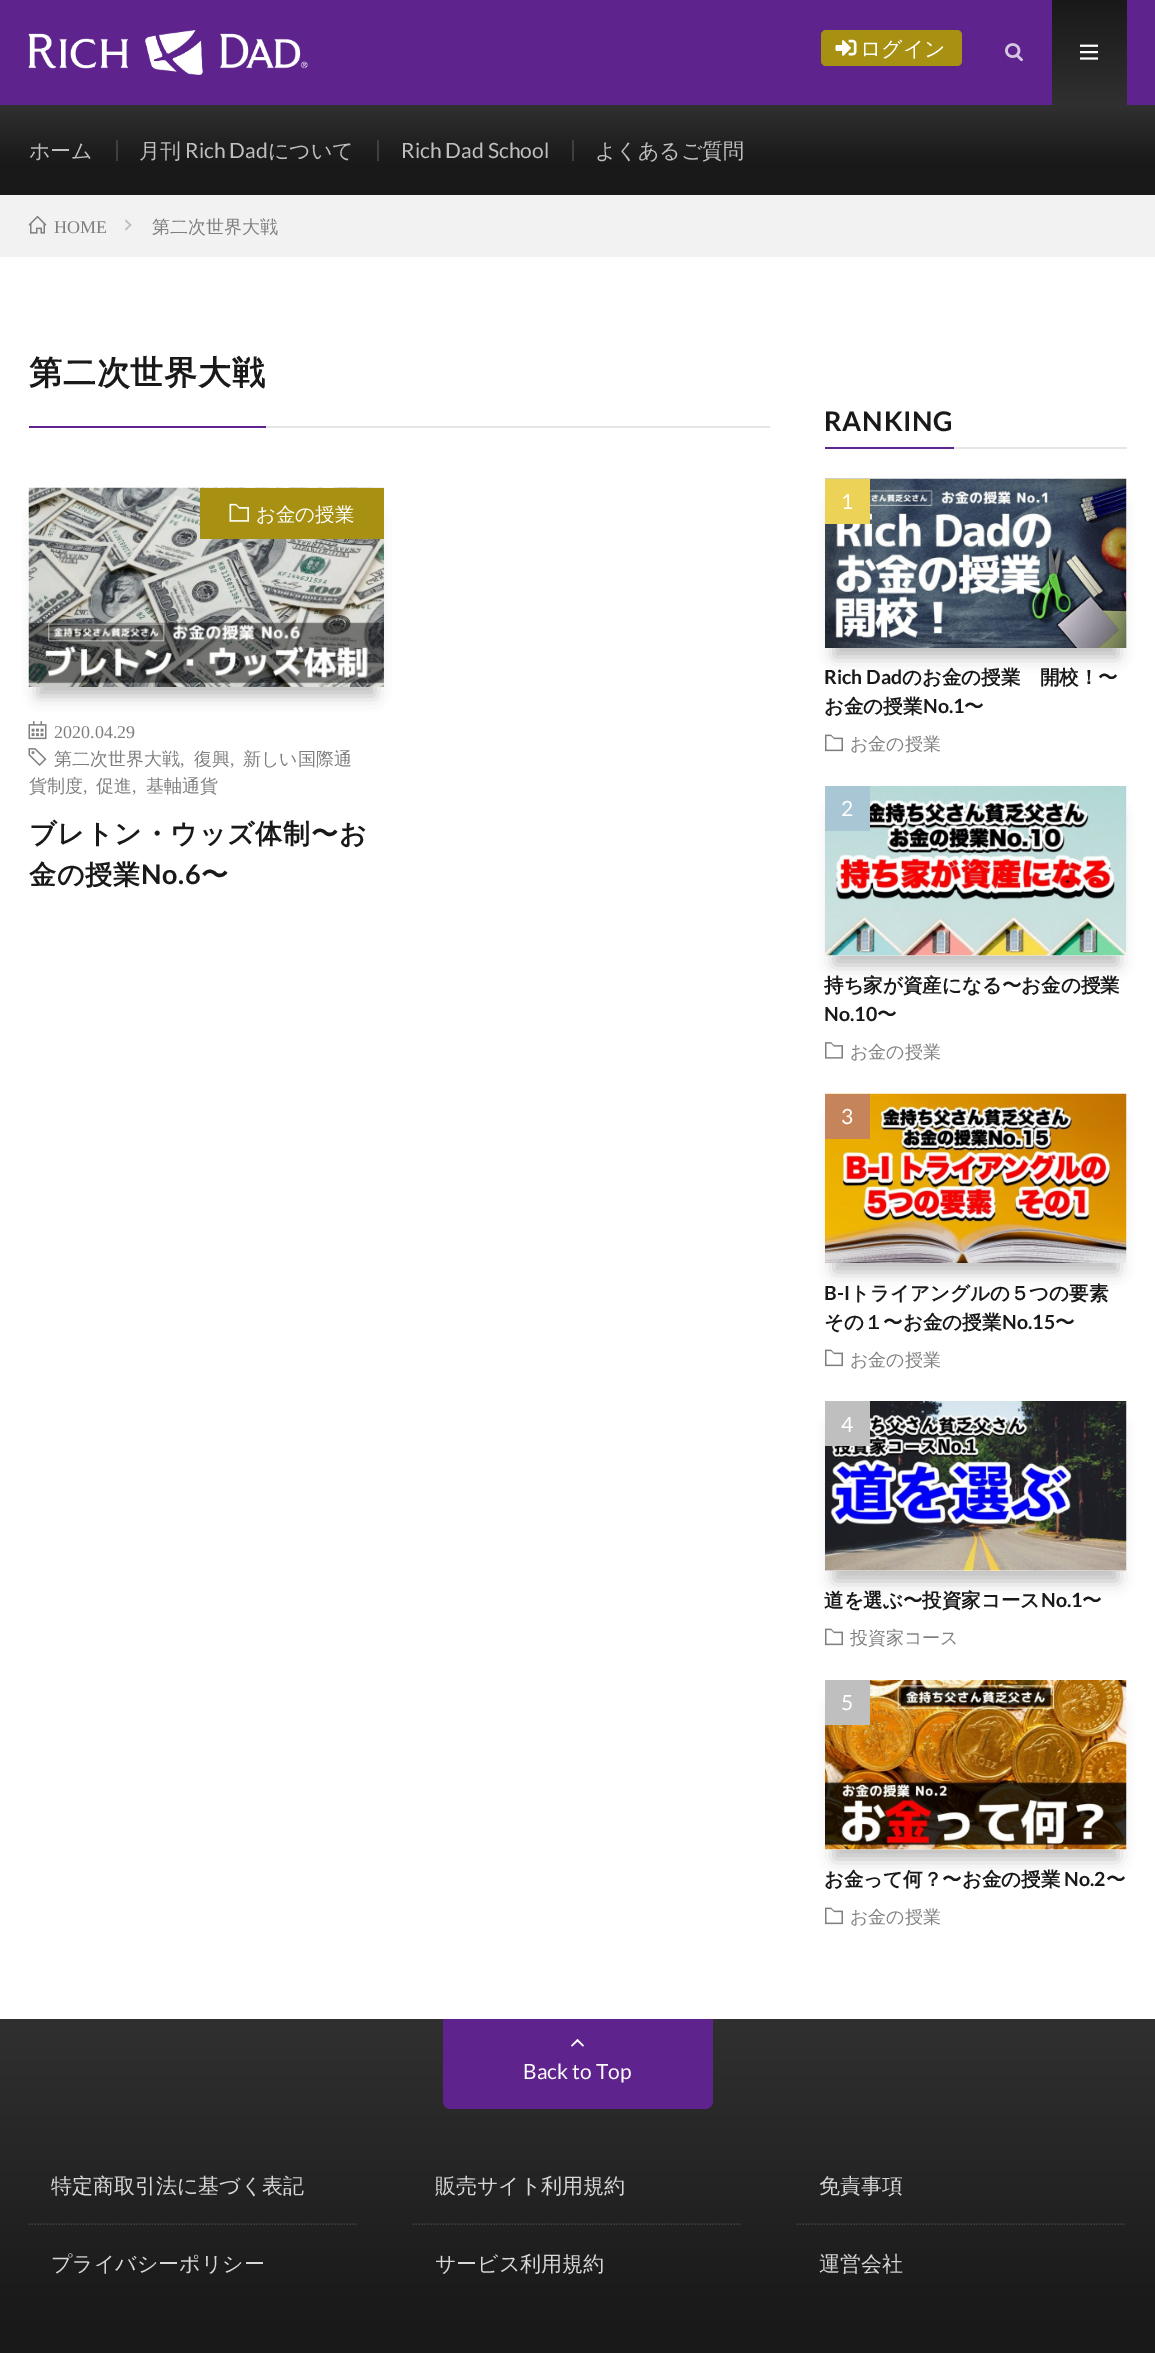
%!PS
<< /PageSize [1155 2353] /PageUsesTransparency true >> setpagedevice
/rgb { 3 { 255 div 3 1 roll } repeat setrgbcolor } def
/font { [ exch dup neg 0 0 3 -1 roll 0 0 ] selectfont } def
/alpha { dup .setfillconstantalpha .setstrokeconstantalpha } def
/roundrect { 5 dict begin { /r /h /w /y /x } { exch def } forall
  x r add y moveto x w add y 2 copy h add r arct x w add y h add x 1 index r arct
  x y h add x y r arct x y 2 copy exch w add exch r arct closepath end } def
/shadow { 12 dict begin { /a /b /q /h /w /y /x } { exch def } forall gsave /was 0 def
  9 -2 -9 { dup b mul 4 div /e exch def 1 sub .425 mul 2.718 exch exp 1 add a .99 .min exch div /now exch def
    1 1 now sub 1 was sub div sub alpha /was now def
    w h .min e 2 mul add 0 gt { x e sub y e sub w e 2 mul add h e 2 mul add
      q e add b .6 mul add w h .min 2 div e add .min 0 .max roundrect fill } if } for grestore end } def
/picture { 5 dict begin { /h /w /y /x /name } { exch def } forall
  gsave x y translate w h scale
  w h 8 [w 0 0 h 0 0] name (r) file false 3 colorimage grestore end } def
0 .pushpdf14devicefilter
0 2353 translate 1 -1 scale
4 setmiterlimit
255 255 255 rgb
0 0 1155 2353 rectfill
94 35 141 rgb
0 0 1155 105 rectfill
(img/1.rgb) 28 30 280 45 picture
168 145 18 rgb
821 30 141 36 5 roundrect fill
(img/2.rgb) 835 39 22 17 picture
(img/3.rgb) 1005 43 18 19 picture
gsave 1052 0 moveto 1127 0 lineto 1127 105 lineto 1052 105 lineto closepath clip newpath
<< /ShadingType 2 /ColorSpace /DeviceRGB /Coords [1089 0 1089 105] /Extend [true true] /Function << /FunctionType 2 /Domain [0 1] /C0 [0.098 0.098 0.098] /C1 [0.188 0.188 0.188] /N 1 >> >> shfill grestore
(img/4.rgb) 1080 44 18 16 picture
gsave 0 105 moveto 1155 105 lineto 1155 195 lineto 0 195 lineto closepath clip newpath
<< /ShadingType 2 /ColorSpace /DeviceRGB /Coords [578 195 578 105] /Extend [true true] /Function << /FunctionType 3 /Domain [0 1] /Functions [<< /FunctionType 2 /Domain [0 1] /C0 [0.098 0.098 0.098] /C1 [0.098 0.098 0.098] /N 1 >> << /FunctionType 2 /Domain [0 1] /C0 [0.098 0.098 0.098] /C1 [0.188 0.188 0.188] /N 1 >>] /Bounds [0.35] /Encode [0 1 0 1] >> >> shfill grestore
[
  [116 140 2 21 63 63 63]
  [377 140 2 21 63 63 63]
  [572 140 2 21 63 63 63]
  [0 195 1155 62 242 242 242]
] { aload pop rgb rectfill } forall
(img/5.rgb) 28 215 19 19 picture
191 191 191 rgb
126 219.5 moveto 131.5 225 lineto 130.5 226 lineto 125 221 lineto closepath fill
130.5 224 moveto 131.5 225 lineto 126 230.5 lineto 125 229 lineto closepath fill
94 35 141 rgb
29 426 237 2 rectfill
229 229 229 rgb
266 426 504 2 rectfill
0 0 0 rgb
38 515 337 181 0 7.5 0.25 shadow
(img/6.rgb) 28 487 356 200 picture
168 145 18 rgb
200 488 184 51 rectfill
(img/7.rgb) 229 503 20 19 picture
(img/8.rgb) 28 721 19 19 picture
(img/9.rgb) 28 748 19 18 picture
94 35 141 rgb
825 447 129 2 rectfill
229 229 229 rgb
954 447 173 2 rectfill
0 0 0 rgb
834 506 284 151 0 7.5 0.25 shadow
(img/10.rgb) 825 478 302 170 picture
236 211 87 rgb
825 479 45 45 rectfill
(img/11.rgb) 825 734 18 18 picture
0 0 0 rgb
834 813 284 152 0 7.5 0.25 shadow
(img/12.rgb) 825 786 302 170 picture
169 198 213 rgb
825 786 45 45 rectfill
(img/13.rgb) 825 1042 18 17 picture
0 0 0 rgb
834 1121 284 151 0 7.5 0.25 shadow
(img/14.rgb) 825 1093 302 170 picture
197 132 89 rgb
825 1094 45 45 rectfill
(img/11.rgb) 825 1349 18 18 picture
0 0 0 rgb
834 1428 284 153 0 7.5 0.25 shadow
(img/15.rgb) 825 1401 302 170 picture
191 191 191 rgb
825 1401 45 45 rectfill
(img/11.rgb) 825 1628 18 18 picture
0 0 0 rgb
834 1707 284 152 0 7.5 0.25 shadow
(img/16.rgb) 825 1680 302 170 picture
191 191 191 rgb
825 1680 45 45 rectfill
(img/11.rgb) 825 1907 18 18 picture
gsave 0 2019 moveto 1155 2019 lineto 1155 2353 lineto 0 2353 lineto closepath clip newpath
<< /ShadingType 2 /ColorSpace /DeviceRGB /Coords [578 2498 578 2019] /Extend [true true] /Function << /FunctionType 3 /Domain [0 1] /Functions [<< /FunctionType 2 /Domain [0 1] /C0 [0.098 0.098 0.098] /C1 [0.098 0.098 0.098] /N 1 >> << /FunctionType 2 /Domain [0 1] /C0 [0.098 0.098 0.098] /C1 [0.188 0.188 0.188] /N 1 >>] /Bounds [0.35] /Encode [0 1 0 1] >> >> shfill grestore
94 35 141 rgb
443 2019 moveto 713 2019 lineto 713 2101 lineto 713 2105.5 709.5 2109 705 2109 curveto 451 2109 lineto 446.5 2109 443 2105.5 443 2101 curveto closepath fill
255 255 255 rgb
577.5 2039 moveto 584 2045.5 lineto 583 2046.5 lineto 576.5 2040.5 lineto closepath fill
577.5 2039 moveto 578.5 2040.5 lineto 572 2046.5 lineto 571 2045.5 lineto closepath fill
63 63 63 rgb
1.5 setlinewidth
[1.5 1.5] 0 setdash
28.5 2224 moveto 358.5 2224 lineto stroke
412.5 2224 moveto 742.5 2224 lineto stroke
796.5 2224 moveto 1126.5 2224 lineto stroke
/WenQuanYiZenHei-Medium 21 font
255 255 255 rgb
860 56 moveto (ログイン) show
191 191 191 rgb
29 158 moveto (ホーム) show
139 158 moveto (月刊) show
/Lato-Regular 21 font
185 158 moveto (Rich Dad) show
/WenQuanYiZenHei-Medium 21 font
268 158 moveto (について) show
/Lato-Regular 21 font
401 158 moveto (Rich Dad School) show
/WenQuanYiZenHei-Medium 21 font
595 158 moveto (よくあるご質問) show
/LiberationSerif-Regular 18 font
127 127 127 rgb
54 233 moveto (HOME) show
/WenQuanYiZenHei-Medium 18 font
152 233 moveto (第二次世界大戦) show
/WenQuanYiZenHei-Bold 33 font
25 25 25 rgb
29 384 moveto 0.75 0 (第二次世界大戦) ashow
/WenQuanYiZenHei-Medium 19.5 font
255 255 255 rgb
256 521 moveto (お金の授業) show
/LiberationSerif-Regular 18 font
127 127 127 rgb
54 738 moveto (2020.04.29) show
/WenQuanYiZenHei-Medium 18 font
54 765 moveto (第二次世界大戦) show
/LiberationSerif-Regular 18 font
180 765 moveto (,) show
/WenQuanYiZenHei-Medium 18 font
194 765 moveto (復興) show
/LiberationSerif-Regular 18 font
230 765 moveto (,) show
/WenQuanYiZenHei-Medium 18 font
243 765 moveto (新しい国際通) show
29 792 moveto (貨制度) show
/LiberationSerif-Regular 18 font
83 792 moveto (,) show
/WenQuanYiZenHei-Medium 18 font
96 792 moveto (促進) show
/LiberationSerif-Regular 18 font
132 792 moveto (,) show
/WenQuanYiZenHei-Medium 18 font
146 792 moveto (基軸通貨) show
/WenQuanYiZenHei-Bold 27 font
25 25 25 rgb
29 843 moveto 0.75 0 (ブレトン・ウッズ体制〜お) ashow
29 884 moveto 0.75 0 (金の授業) ashow
/Lato-Bold 27 font
141 884 moveto 0.75 0 (No.6) ashow
/WenQuanYiZenHei-Bold 27 font
201 884 moveto 0.75 0 (〜) ashow
/Lato-Bold 27 font
824 431 moveto 0.75 0 (RANKING) ashow
/Lato-Regular 21 font
255 255 255 rgb
841 509 moveto (1) show
/Lato-Bold 19.5 font
25 25 25 rgb
824 684 moveto (Rich Dad) show
/WenQuanYiZenHei-Bold 19.5 font
902 684 moveto (のお金の授業　開校！〜) show
824 713 moveto (お金の授業) show
/Lato-Bold 19.5 font
923 713 moveto (No.1) show
/WenQuanYiZenHei-Bold 19.5 font
964 713 moveto (〜) show
/WenQuanYiZenHei-Medium 18 font
127 127 127 rgb
850 750 moveto (お金の授業) show
/Lato-Regular 21 font
255 255 255 rgb
841 816 moveto (2) show
/WenQuanYiZenHei-Bold 19.5 font
25 25 25 rgb
824 992 moveto (持ち家が資産になる〜お金の授業) show
/Lato-Bold 19.5 font
824 1021 moveto (No.10) show
/WenQuanYiZenHei-Bold 19.5 font
877 1021 moveto (〜) show
/WenQuanYiZenHei-Medium 18 font
127 127 127 rgb
850 1058 moveto (お金の授業) show
/Lato-Regular 21 font
255 255 255 rgb
841 1124 moveto (3) show
/Lato-Bold 19.5 font
25 25 25 rgb
824 1300 moveto (B-I) show
/WenQuanYiZenHei-Bold 19.5 font
850 1300 moveto (トライアングルの５つの要素) show
824 1329 moveto (その１〜お金の授業) show
/Lato-Bold 19.5 font
1002 1329 moveto (No.15) show
/WenQuanYiZenHei-Bold 19.5 font
1055 1329 moveto (〜) show
/WenQuanYiZenHei-Medium 18 font
127 127 127 rgb
850 1366 moveto (お金の授業) show
/Lato-Regular 21 font
255 255 255 rgb
841 1432 moveto (4) show
/WenQuanYiZenHei-Bold 19.5 font
25 25 25 rgb
824 1607 moveto (道を選ぶ〜投資家コース) show
/Lato-Bold 19.5 font
1041 1607 moveto (No.1) show
/WenQuanYiZenHei-Bold 19.5 font
1082 1607 moveto (〜) show
/WenQuanYiZenHei-Medium 18 font
127 127 127 rgb
850 1644 moveto (投資家コース) show
/Lato-Regular 21 font
255 255 255 rgb
841 1710 moveto (5) show
/WenQuanYiZenHei-Bold 19.5 font
25 25 25 rgb
824 1886 moveto (お金って何？〜お金の授業) show
/Lato-Bold 19.5 font
1064 1886 moveto (No.2) show
/WenQuanYiZenHei-Bold 19.5 font
1106 1886 moveto (〜) show
/WenQuanYiZenHei-Medium 18 font
127 127 127 rgb
850 1923 moveto (お金の授業) show
/Lato-Regular 21 font
255 255 255 rgb
523 2079 moveto (Back to Top) show
/WenQuanYiZenHei-Medium 21 font
216 216 216 rgb
[
  [(特定商取引法に基づく表記) 51 2193]
  [(プライバシーポリシー) 51 2271]
  [(販売サイト利用規約) 435 2193]
  [(サービス利用規約) 435 2271]
  [(免責事項) 819 2193]
  [(運営会社) 819 2271]
] { aload pop moveto show } forall
.poppdf14devicefilter showpage
